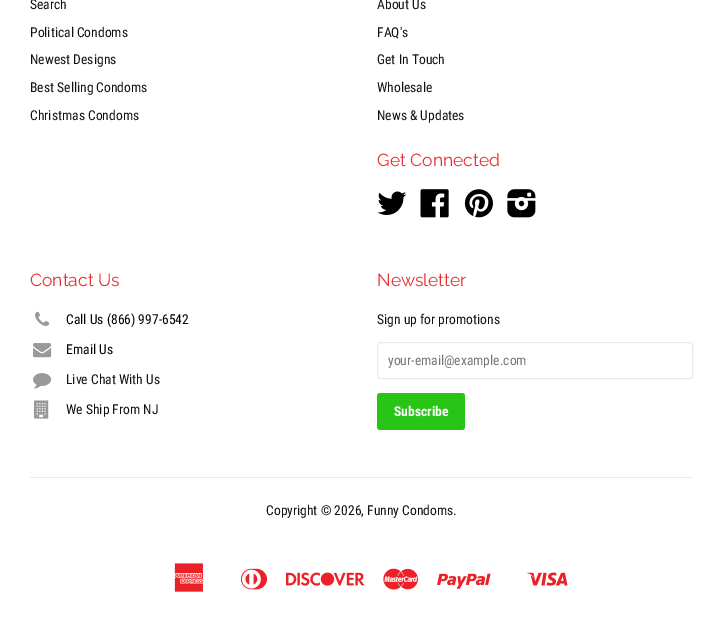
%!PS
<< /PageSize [723 625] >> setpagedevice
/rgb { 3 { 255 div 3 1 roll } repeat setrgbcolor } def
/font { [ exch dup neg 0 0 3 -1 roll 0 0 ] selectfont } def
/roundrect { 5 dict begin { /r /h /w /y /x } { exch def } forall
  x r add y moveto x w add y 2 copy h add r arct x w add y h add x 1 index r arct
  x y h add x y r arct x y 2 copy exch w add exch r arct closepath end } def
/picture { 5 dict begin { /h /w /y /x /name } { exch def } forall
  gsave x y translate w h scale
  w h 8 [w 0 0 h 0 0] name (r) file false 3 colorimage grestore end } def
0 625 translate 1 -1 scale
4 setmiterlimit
255 255 255 rgb
0 0 723 625 rectfill
(img/1.rgb) 377 191 30 24 picture
(img/2.rgb) 420 189 29 29 picture
(img/3.rgb) 464 189 29 29 picture
(img/4.rgb) 507 189 29 29 picture
(img/5.rgb) 35 311 15 15 picture
(img/6.rgb) 33 343 19 15 picture
(img/7.rgb) 33 373 19 16 picture
(img/8.rgb) 34 400 15 19 picture
234 234 234 rgb
377.5 342.5 315 36 2.5 roundrect stroke
40 197 23 rgb
377 393 88 37 3 roundrect fill
234 234 234 rgb
30 477 663 1 rectfill
(img/9.rgb) 174 563 30 29 picture
(img/10.rgb) 241 568 26 22 picture
(img/11.rgb) 286 572 79 14 picture
(img/12.rgb) 383 568 35 22 picture
(img/13.rgb) 437 573 54 16 picture
(img/14.rgb) 527 572 41 14 picture
/RobotoCondensed-Regular 13.6 font
17 17 17 rgb
[
  [(Search) 30 9]
  [(Political Condoms) 30 37]
  [(Newest Designs) 30 64]
  [(Best Selling Condoms) 30 92]
  [(Christmas Condoms) 30 120]
  [(About Us) 377 9]
  [(FAQ's) 377 37]
  [(Get In Touch) 377 64]
  [(Wholesale) 377 92]
  [(News & Updates) 377 120]
] { aload pop moveto show } forall
/Raleway-Regular 17.5 font
233 47 47 rgb
377 166 moveto (Get Connected) show
30 286 moveto (Contact Us) show
/RobotoCondensed-Regular 13.6 font
0 0 0 rgb
66 324 moveto (Call Us \(866\) 997-6542) show
66 354 moveto (Email Us) show
17 17 17 rgb
66 384 moveto (Live Chat With Us) show
66 414 moveto (We Ship From NJ) show
/Raleway-Regular 17.5 font
233 47 47 rgb
377 286 moveto (Newsletter) show
/RobotoCondensed-Regular 13.6 font
17 17 17 rgb
377 324 moveto (Sign up for promotions) show
117 117 117 rgb
388 365 moveto (your-email@example.com) show
/RobotoCondensed-Bold 13.6 font
255 255 255 rgb
394 416 moveto (Subscribe) show
/RobotoCondensed-Regular 13.6 font
17 17 17 rgb
266 515 moveto (Copyright © 2026, Funny Condoms.) show
showpage
